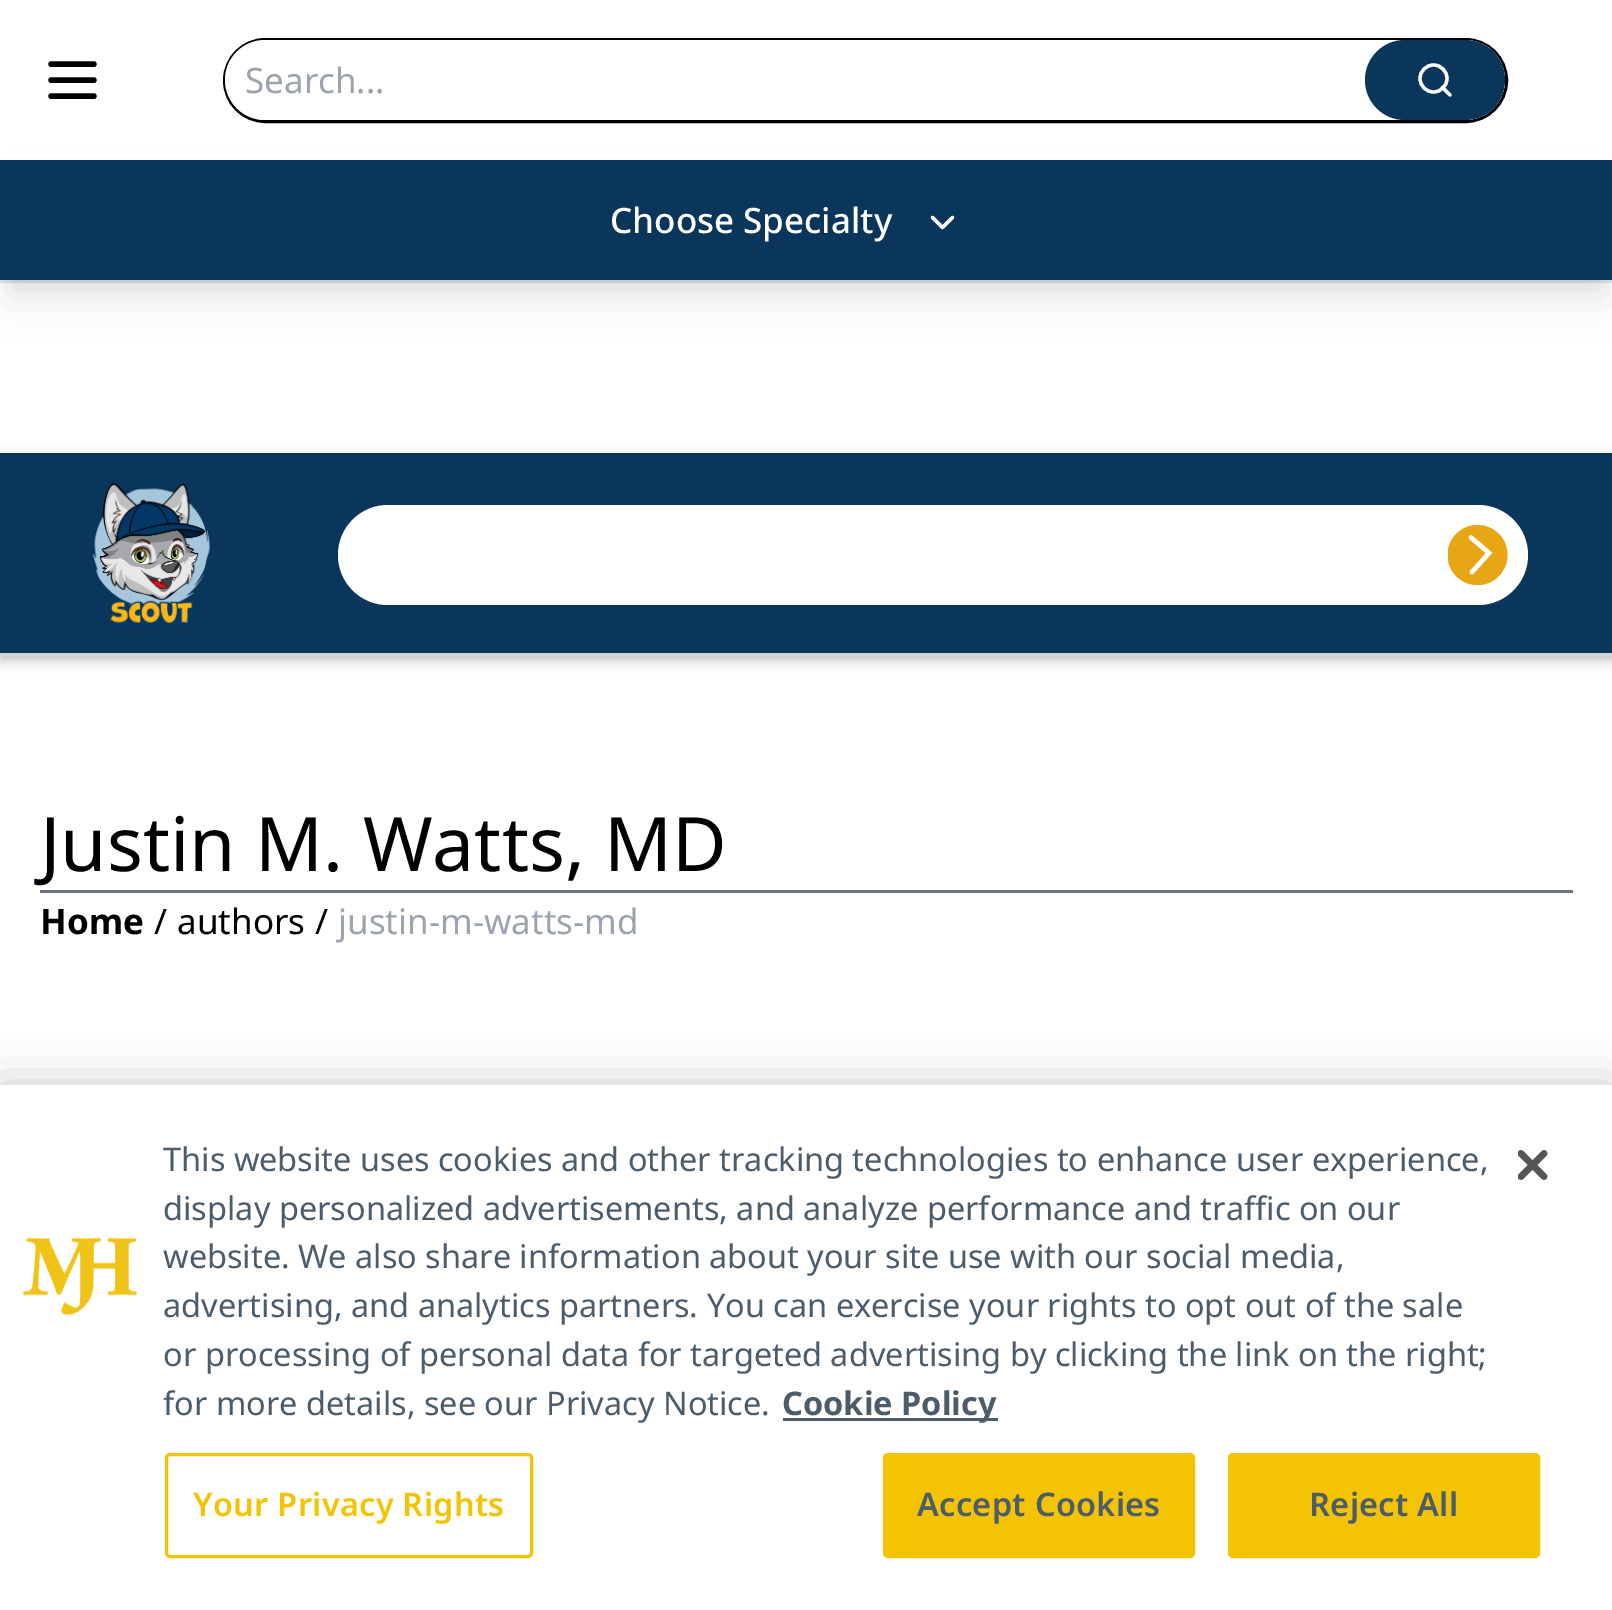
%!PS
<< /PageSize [1612 1610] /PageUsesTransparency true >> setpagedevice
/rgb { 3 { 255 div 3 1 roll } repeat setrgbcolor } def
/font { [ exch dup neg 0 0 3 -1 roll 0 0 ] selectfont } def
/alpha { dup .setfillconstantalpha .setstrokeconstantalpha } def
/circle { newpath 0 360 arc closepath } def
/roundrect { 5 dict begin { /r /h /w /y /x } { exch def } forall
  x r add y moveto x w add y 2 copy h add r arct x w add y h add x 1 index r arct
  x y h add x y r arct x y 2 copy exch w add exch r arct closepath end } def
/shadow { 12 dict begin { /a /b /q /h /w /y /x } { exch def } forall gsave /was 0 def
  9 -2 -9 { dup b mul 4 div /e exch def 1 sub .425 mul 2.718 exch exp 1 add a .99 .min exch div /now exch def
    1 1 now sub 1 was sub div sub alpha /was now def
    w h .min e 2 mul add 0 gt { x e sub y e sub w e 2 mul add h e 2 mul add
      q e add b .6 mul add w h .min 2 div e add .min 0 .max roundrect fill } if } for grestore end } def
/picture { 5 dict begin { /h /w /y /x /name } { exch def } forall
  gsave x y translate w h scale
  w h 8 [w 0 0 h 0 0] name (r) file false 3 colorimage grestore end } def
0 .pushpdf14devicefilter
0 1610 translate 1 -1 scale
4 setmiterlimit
255 255 255 rgb
0 0 1612 1610 rectfill
229 231 235 rgb
0 280 1612 3 rectfill
0 0 0 rgb
5.4 setlinewidth
1 setlinecap
1 setlinejoin
51 64 moveto 94 64 lineto 51 80 moveto 94 80 lineto 51 96 moveto 94 96 lineto stroke
3 setlinewidth
0 setlinecap
0 setlinejoin
224.5 39.5 1282 82 41 roundrect stroke
255 255 255 rgb
225 40 1280 80 40 roundrect fill
11 54 92 rgb
1365 40 140 80 40 roundrect fill
255 255 255 rgb
3.3 setlinewidth
1433.5 78.5 13.5 circle stroke
1 setlinecap
1 setlinejoin
1450 95 moveto 1442.5 87.5 lineto stroke
0 0 0 rgb
10 180 1593 100 0 7.5 0.1 shadow
8 193 1597 105 0 19 0.1 shadow
11 54 92 rgb
0 160 1612 120 rectfill
255 255 255 rgb
932.5 217.5 moveto 942.5 227.5 lineto 952.5 217.5 lineto stroke
0 0 0 rgb
0 458 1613 202 0 6 0.25 shadow
11 54 92 rgb
0 453 1612 200 rectfill
209 213 219 rgb
0 653 1612 3 rectfill
(img/1.rgb) 92 482 118 145 picture
255 255 255 rgb
338 505 1190 100 50 roundrect fill
gsave
1448 525 60 60 rectclip
231 166 20 rgb
1477.5 555 30 circle fill
grestore
4.5 setlinewidth
0 setlinejoin
1471 537.5 moveto 1489 553 lineto 1472 572 lineto stroke
107 114 128 rgb
40 890 1533 3 rectfill
0 0 0 rgb
0 1085 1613 525 0 22.5 0.2 shadow
255 255 255 rgb
0 1085 1612 525 rectfill
(img/2.rgb) 23 1237 114 79 picture
76 92 107 rgb
783 1418 215 3 rectfill
244 196 4 rgb
3 setlinewidth
0 setlinecap
166.5 1454.5 365 102 3.5 roundrect stroke
884.5 1454.5 309 102 3.5 roundrect gsave fill grestore
stroke
1229.5 1454.5 309 102 3.5 roundrect gsave fill grestore
stroke
(img/3.rgb) 1518 1150 30 30 picture
/NotoSans-Regular 35 font
156 163 175 rgb
245 93 moveto (Search...) show
/NotoSans-Medium 35 font
255 255 255 rgb
610 233 moveto (Choose Specialty) show
/NotoSans-Regular 75 font
0 0 0 rgb
40 871 moveto (Justin M. Watts, MD) show
/NotoSans-Bold 35 font
40 934 moveto (Home) show
/NotoSans-Regular 35 font
[
  [(/) 154 934]
  [(authors) 177 934]
  [(/) 315 934]
] { aload pop moveto show } forall
156 163 175 rgb
338 934 moveto (justin-m-watts-md) show
/NotoSans-Regular 32.5 font
76 92 107 rgb
[
  [(This website uses cookies and other tracking technologies to enhance user experience,) 163 1171]
  [(display personalized advertisements, and analyze performance and traffic on our) 163 1220]
  [(website. We also share information about your site use with our social media,) 163 1268]
  [(advertising, and analytics partners. You can exercise your rights to opt out of the sale) 163 1317]
  [(or processing of personal data for targeted advertising by clicking the link on the right;) 163 1366]
  [(for more details, see our Privacy Notice.) 163 1415]
] { aload pop moveto show } forall
/NotoSans-Bold 32.5 font
782 1415 moveto (Cookie Policy) show
/NotoSans-SemiBold 32.5 font
244 196 4 rgb
193 1516 moveto 0.3 0 (Your Privacy Rights) ashow
76 92 107 rgb
917 1516 moveto 0.3 0 (Accept Cookies) ashow
1309 1516 moveto 0.3 0 (Reject All) ashow
.poppdf14devicefilter showpage
